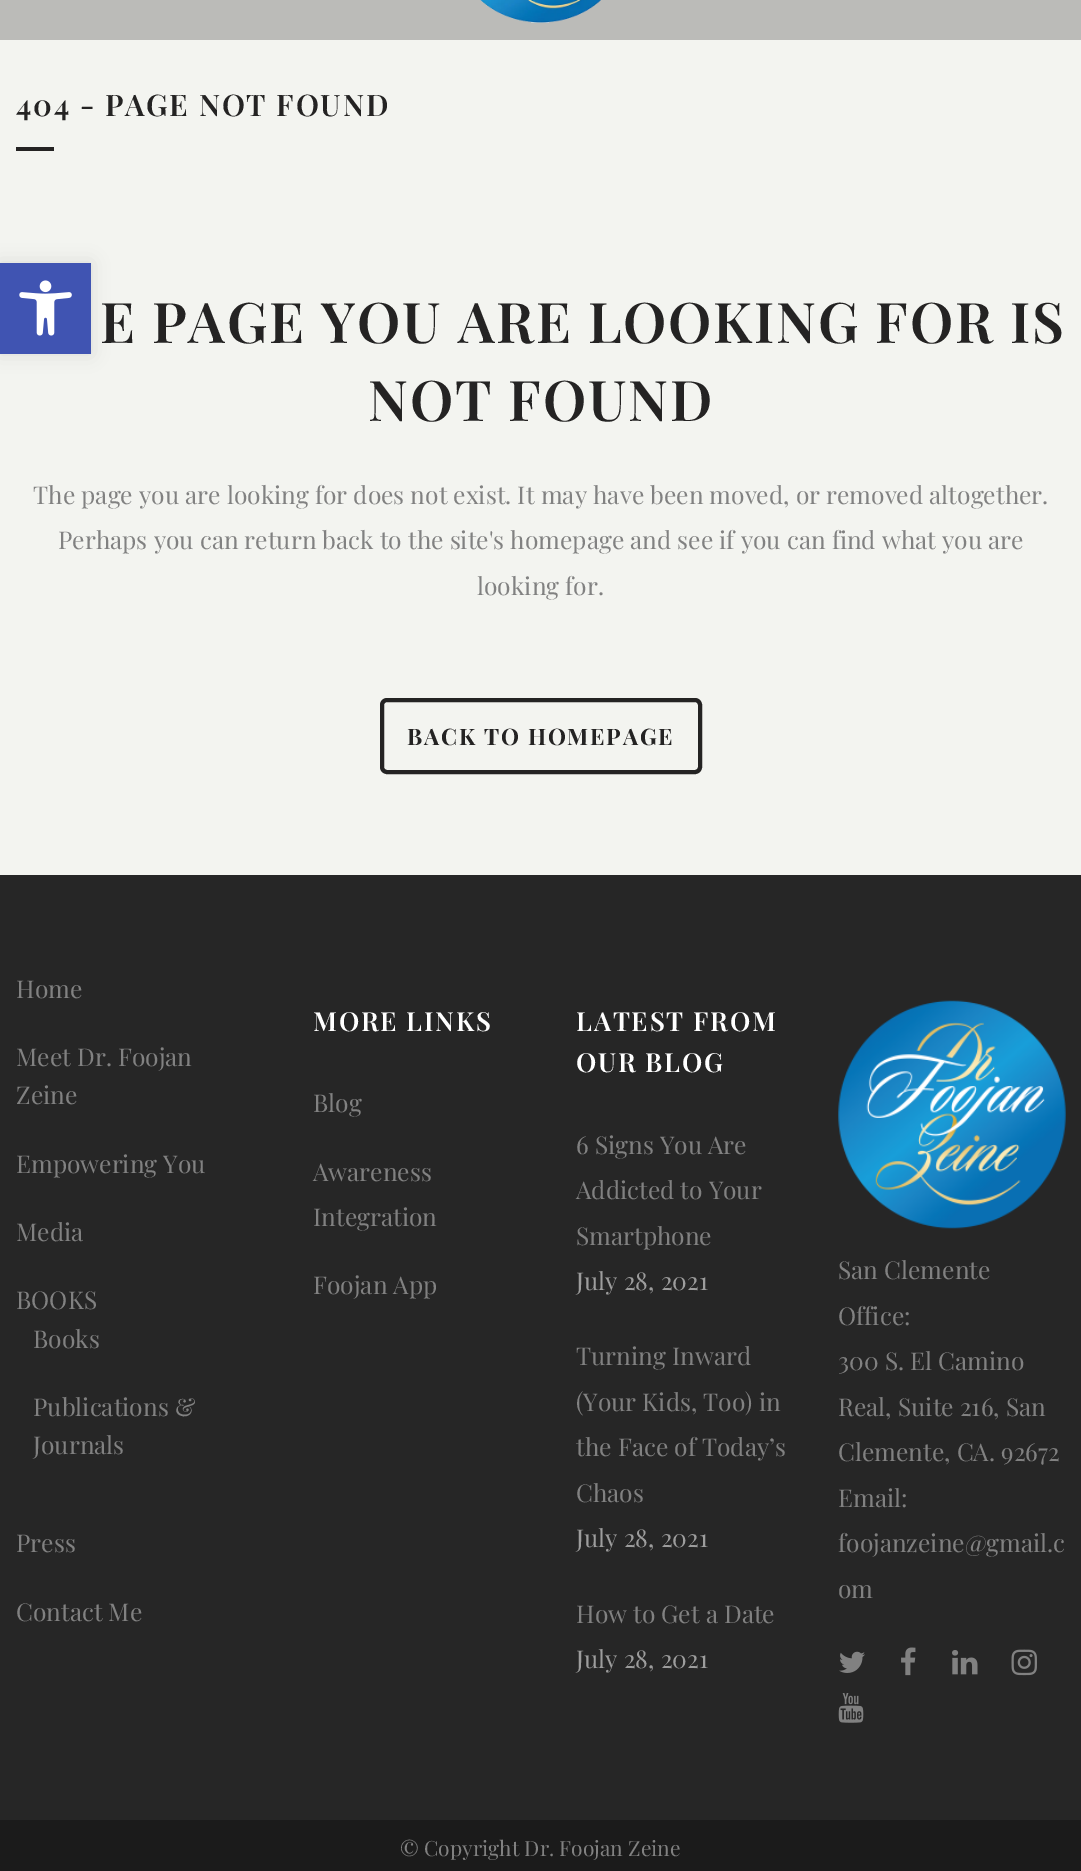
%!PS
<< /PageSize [1081 1871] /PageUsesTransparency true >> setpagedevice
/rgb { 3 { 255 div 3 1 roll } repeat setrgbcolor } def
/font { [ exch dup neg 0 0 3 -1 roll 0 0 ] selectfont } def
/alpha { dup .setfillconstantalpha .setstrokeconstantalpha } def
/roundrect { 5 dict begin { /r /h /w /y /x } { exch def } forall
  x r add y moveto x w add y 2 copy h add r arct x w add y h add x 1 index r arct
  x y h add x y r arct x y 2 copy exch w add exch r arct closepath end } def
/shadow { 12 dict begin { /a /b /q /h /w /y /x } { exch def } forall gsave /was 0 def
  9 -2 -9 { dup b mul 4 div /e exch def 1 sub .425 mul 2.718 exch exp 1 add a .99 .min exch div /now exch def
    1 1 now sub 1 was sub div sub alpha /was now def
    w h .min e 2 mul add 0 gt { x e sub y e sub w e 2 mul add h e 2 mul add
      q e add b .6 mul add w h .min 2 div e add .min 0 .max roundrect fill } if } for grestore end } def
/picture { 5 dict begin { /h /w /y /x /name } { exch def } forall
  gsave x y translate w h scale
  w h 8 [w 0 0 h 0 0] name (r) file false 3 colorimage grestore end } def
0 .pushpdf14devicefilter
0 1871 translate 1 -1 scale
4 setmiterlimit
243 244 240 rgb
0 0 1081 1871 rectfill
187 187 184 rgb
0 0 1081 40 rectfill
(img/1.rgb) 480 0 121 23 picture
36 35 35 rgb
16 147 38 4 rectfill
4 setlinewidth
382 700 318 72 5 roundrect stroke
38 38 38 rgb
0 875 1081 945 rectfill
(img/2.rgb) 838 1000 228 229 picture
(img/3.rgb) 839 1651 26 22 picture
(img/4.rgb) 901 1647 15 29 picture
(img/5.rgb) 952 1650 26 25 picture
(img/6.rgb) 1011 1649 26 27 picture
(img/7.rgb) 838 1693 26 30 picture
27 27 27 rgb
0 1820 1081 51 rectfill
0 0 0 rgb
0 263 91 91 0 9 0.1 shadow
64 84 178 rgb
0 263 91 91 rectfill
(img/8.rgb) 19 280 53 56 picture
/PlayfairDisplay-SemiBold 29.75 font
36 35 35 rgb
16 116 moveto 1.75 0 (404 - PAGE NOT FOUND) ashow
/PlayfairDisplay-SemiBold 56 font
100 343 moveto 1.75 0 (E PAGE YOU ARE LOOKING FOR IS) ashow
368 421 moveto 1.75 0 (NOT FOUND) ashow
/PlayfairDisplay-Regular 24.5 font
129 129 129 rgb
[
  [(The page you are looking for does not exist. It may have been moved, or removed altogether.) 33 504]
  [(Perhaps you can return back to the site's homepage and see if you can find what you are) 58 549]
  [(looking for.) 477 595]
] { aload pop moveto show } forall
/PlayfairDisplay-Bold 22.75 font
36 35 35 rgb
407 745 moveto 1.75 0 (BACK TO HOMEPAGE) ashow
/PlayfairDisplay-Regular 24.5 font
129 129 129 rgb
[
  [(Home) 16 998]
  [(Meet Dr. Foojan) 16 1066]
  [(Zeine) 16 1104]
  [(Empowering You) 16 1173]
  [(Media) 16 1241]
  [(BOOKS) 16 1309]
  [(Books) 33 1348]
  [(Publications &) 33 1416]
  [(Journals) 33 1454]
  [(Press) 16 1552]
  [(Contact Me) 16 1621]
] { aload pop moveto show } forall
/PlayfairDisplay-SemiBold 26.25 font
255 255 255 rgb
313 1031 moveto 1.75 0 (MORE LINKS) ashow
/PlayfairDisplay-Regular 24.5 font
129 129 129 rgb
[
  [(Blog) 313 1112]
  [(Awareness) 313 1181]
  [(Integration) 313 1226]
  [(Foojan App) 313 1294]
] { aload pop moveto show } forall
/PlayfairDisplay-SemiBold 26.25 font
255 255 255 rgb
576 1031 moveto 1.75 0 (LATEST FROM) ashow
576 1072 moveto 1.75 0 (OUR BLOG) ashow
/PlayfairDisplay-Regular 24.5 font
129 129 129 rgb
[
  [(6 Signs You Are) 576 1154]
  [(Addicted to Your) 576 1199]
  [(Smartphone) 576 1245]
] { aload pop moveto show } forall
157 157 157 rgb
576 1290 moveto (July 28, 2021) show
129 129 129 rgb
[
  [(Turning Inward) 576 1365]
  [(\(Your Kids, Too\) in) 576 1411]
  [(the Face of Today’s) 576 1456]
  [(Chaos) 576 1502]
] { aload pop moveto show } forall
157 157 157 rgb
576 1547 moveto (July 28, 2021) show
129 129 129 rgb
576 1623 moveto (How to Get a Date) show
157 157 157 rgb
576 1668 moveto (July 28, 2021) show
129 129 129 rgb
[
  [(San Clemente) 838 1279]
  [(Office:) 838 1325]
  [(300 S. El Camino) 838 1370]
  [(Real, Suite 216, San) 838 1416]
  [(Clemente, CA. 92672) 838 1461]
  [(Email:) 838 1507]
  [(foojanzeine@gmail.c) 838 1552]
  [(om) 838 1598]
] { aload pop moveto show } forall
/PlayfairDisplay-Regular 21 font
400 1856 moveto (© Copyright Dr. Foojan Zeine) show
.poppdf14devicefilter showpage
